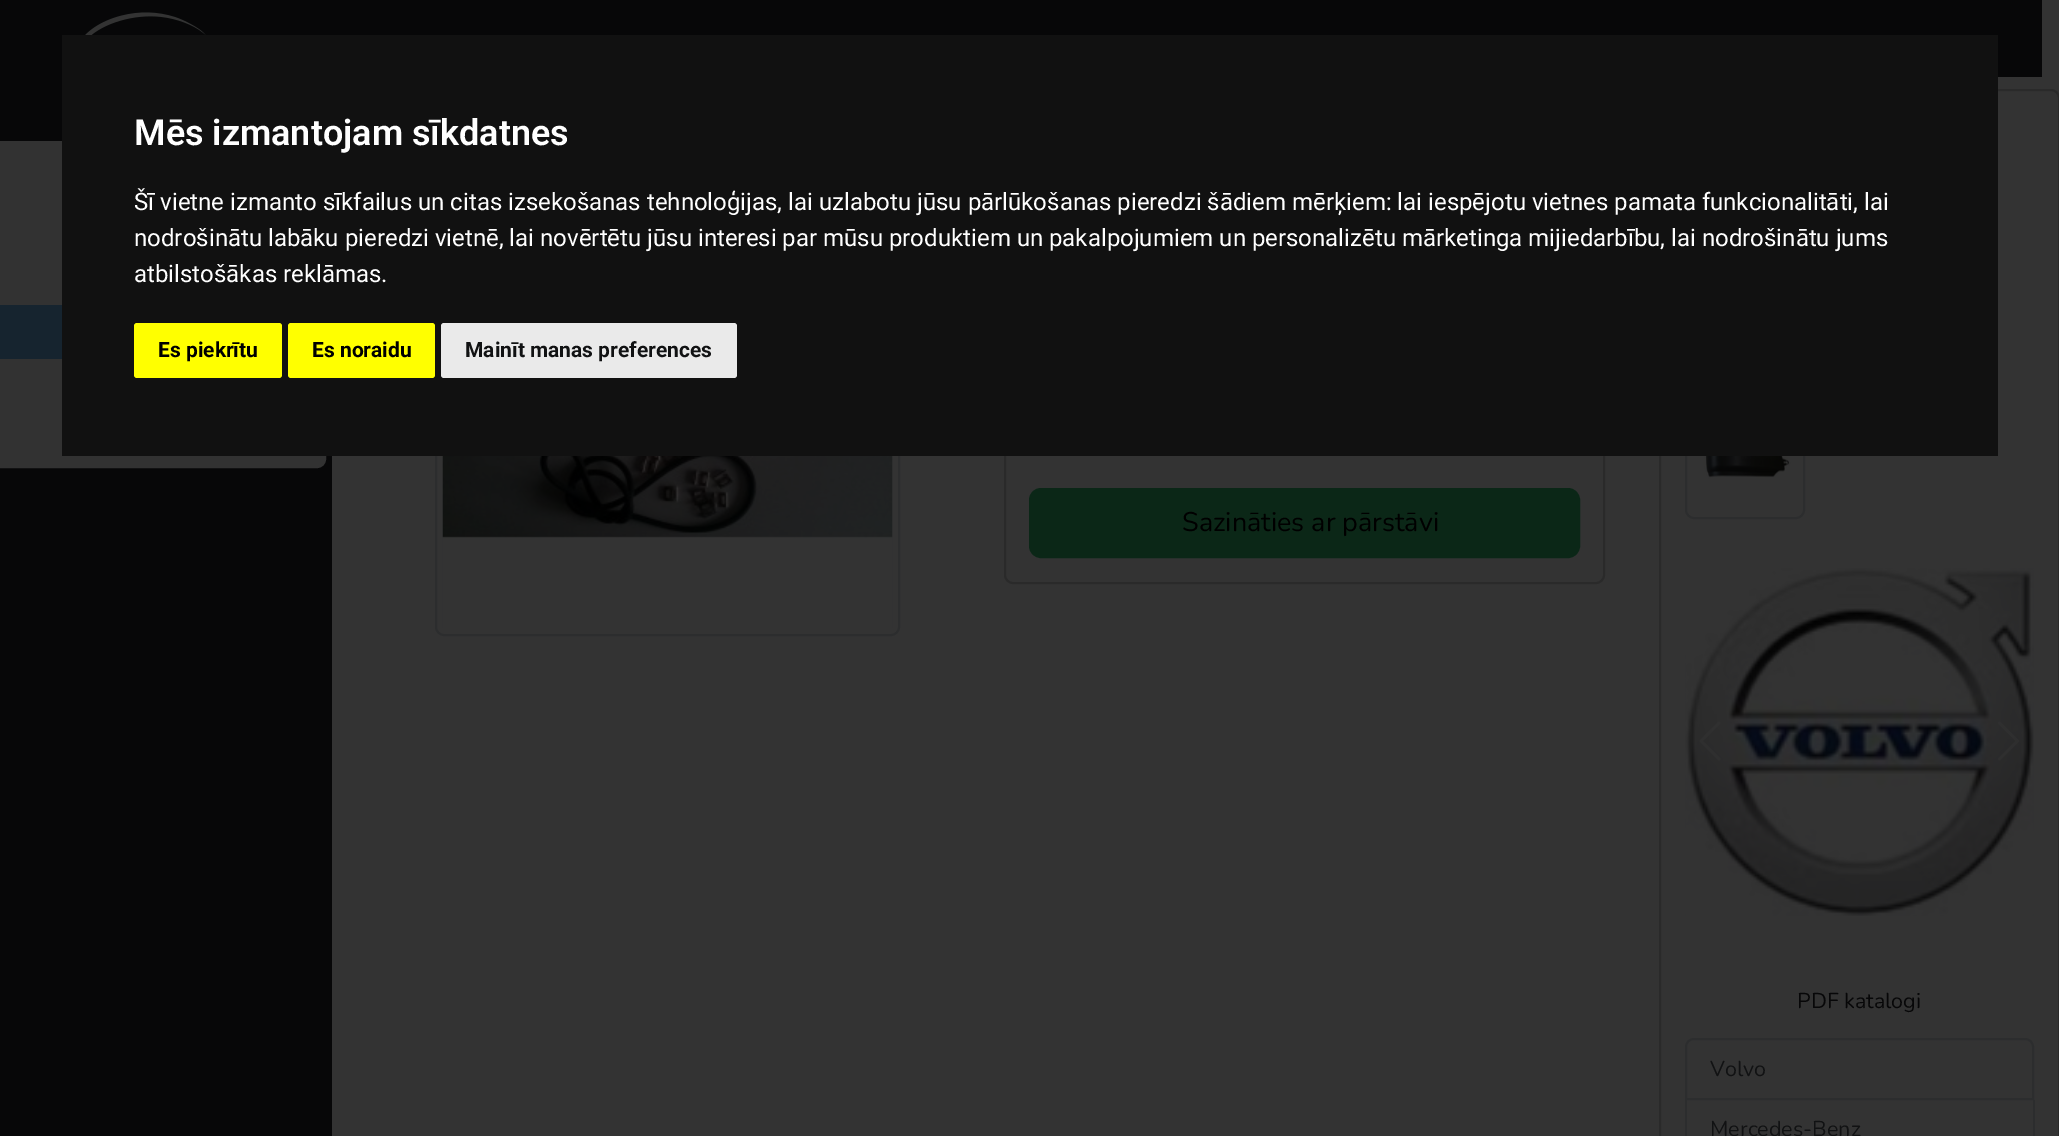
%!PS
<< /PageSize [2059 1136] /PageUsesTransparency true >> setpagedevice
/rgb { 3 { 255 div 3 1 roll } repeat setrgbcolor } def
/font { [ exch dup neg 0 0 3 -1 roll 0 0 ] selectfont } def
/alpha { dup .setfillconstantalpha .setstrokeconstantalpha } def
/roundrect { 5 dict begin { /r /h /w /y /x } { exch def } forall
  x r add y moveto x w add y 2 copy h add r arct x w add y h add x 1 index r arct
  x y h add x y r arct x y 2 copy exch w add exch r arct closepath end } def
/picture { 5 dict begin { /h /w /y /x /name } { exch def } forall
  gsave x y translate w h scale
  w h 8 [w 0 0 h 0 0] name (r) file false 3 colorimage grestore end } def
0 .pushpdf14devicefilter
0 1136 translate 1 -1 scale
4 setmiterlimit
51 51 51 rgb
0 0 2059 1136 rectfill
7 7 8 rgb
0 0 332 1136 rectfill
50 50 50 rgb
0 143 62 52 rectfill
2 setlinewidth
-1 142 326 54 rectstroke
-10 414 moveto 325 414 lineto 325 459 lineto 325 463.5 321.5 467 317 467 curveto -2 467 lineto -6.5 467 -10 463.5 -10 459 curveto closepath gsave fill grestore
stroke
7 7 8 rgb
332 0 1710 77 rectfill
44 45 46 rgb
436 172 463 463 8 roundrect stroke
0.18 alpha
0 0 0 rgb
1005 295 599 288 8 roundrect stroke
1660 90 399 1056 8 roundrect stroke
1 alpha
44 45 46 rgb
1686 400 118 118 8 roundrect stroke
17 17 17 rgb
62 35 1936 421 rectfill
255 255 0 rgb
134 323 148 55 3 roundrect fill
288 323 147 55 3 roundrect fill
234 234 234 rgb
441 323 296 55 3 roundrect fill
(img/1.rgb) 85 12 121 23 picture
[
  [0 197 62 108 50 50 50]
  [0 305 62 54 22 36 47]
  [0 359 62 54 50 50 50]
] { aload pop rgb rectfill } forall
(img/2.rgb) 442 456 451 172 picture
11 39 23 rgb
1030 489 549 68 11 roundrect gsave fill grestore
stroke
(img/3.rgb) 1692 456 105 55 picture
(img/4.rgb) 1685 568 349 348 picture
(img/5.rgb) 1699 721 22 40 picture
(img/6.rgb) 1998 721 21 40 picture
44 45 46 rgb
1694 1039 moveto 2025 1039 lineto 2029.5 1039 2033 1042.5 2033 1047 curveto 2033 1099 lineto 1686 1099 lineto 1686 1047 lineto 1686 1042.5 1689.5 1039 1694 1039 curveto closepath stroke
2033 1100 2 36 rectfill
1685 1100 2 36 rectfill
/Roboto-SemiBold 36 font
255 255 255 rgb
134 145 moveto (Mēs izmantojam sīkdatnes) show
/Roboto-Regular 24 font
[
  [(Šī vietne izmanto sīkfailus un citas izsekošanas tehnoloģijas, lai uzlabotu jūsu pārlūkošanas pieredzi šādiem mērķiem: lai iespējotu vietnes pamata funkcionalitāti, lai) 134 210]
  [(nodrošinātu labāku pieredzi vietnē, lai novērtētu jūsu interesi par mūsu produktiem un pakalpojumiem un personalizētu mārketinga mijiedarbību, lai nodrošinātu jums) 134 246]
  [(atbilstošākas reklāmas.) 134 282]
] { aload pop moveto show } forall
/Roboto-Bold 21 font
0 0 0 rgb
158 357 moveto (Es piekrītu) show
312 357 moveto (Es noraidu) show
17 18 19 rgb
465 357 moveto (Mainīt manas preferences) show
/Nunito-ExtraLight 27 font
0 0 0 rgb
1182 531 moveto (Sazināties ar pārstāvi) show
/Nunito-ExtraLight 21.5 font
7 7 8 rgb
1797 1008 moveto (PDF katalogi) show
17 18 19 rgb
1710 1076 moveto (Volvo) show
1710 1136 moveto (Mercedes-Benz) show
.poppdf14devicefilter showpage
